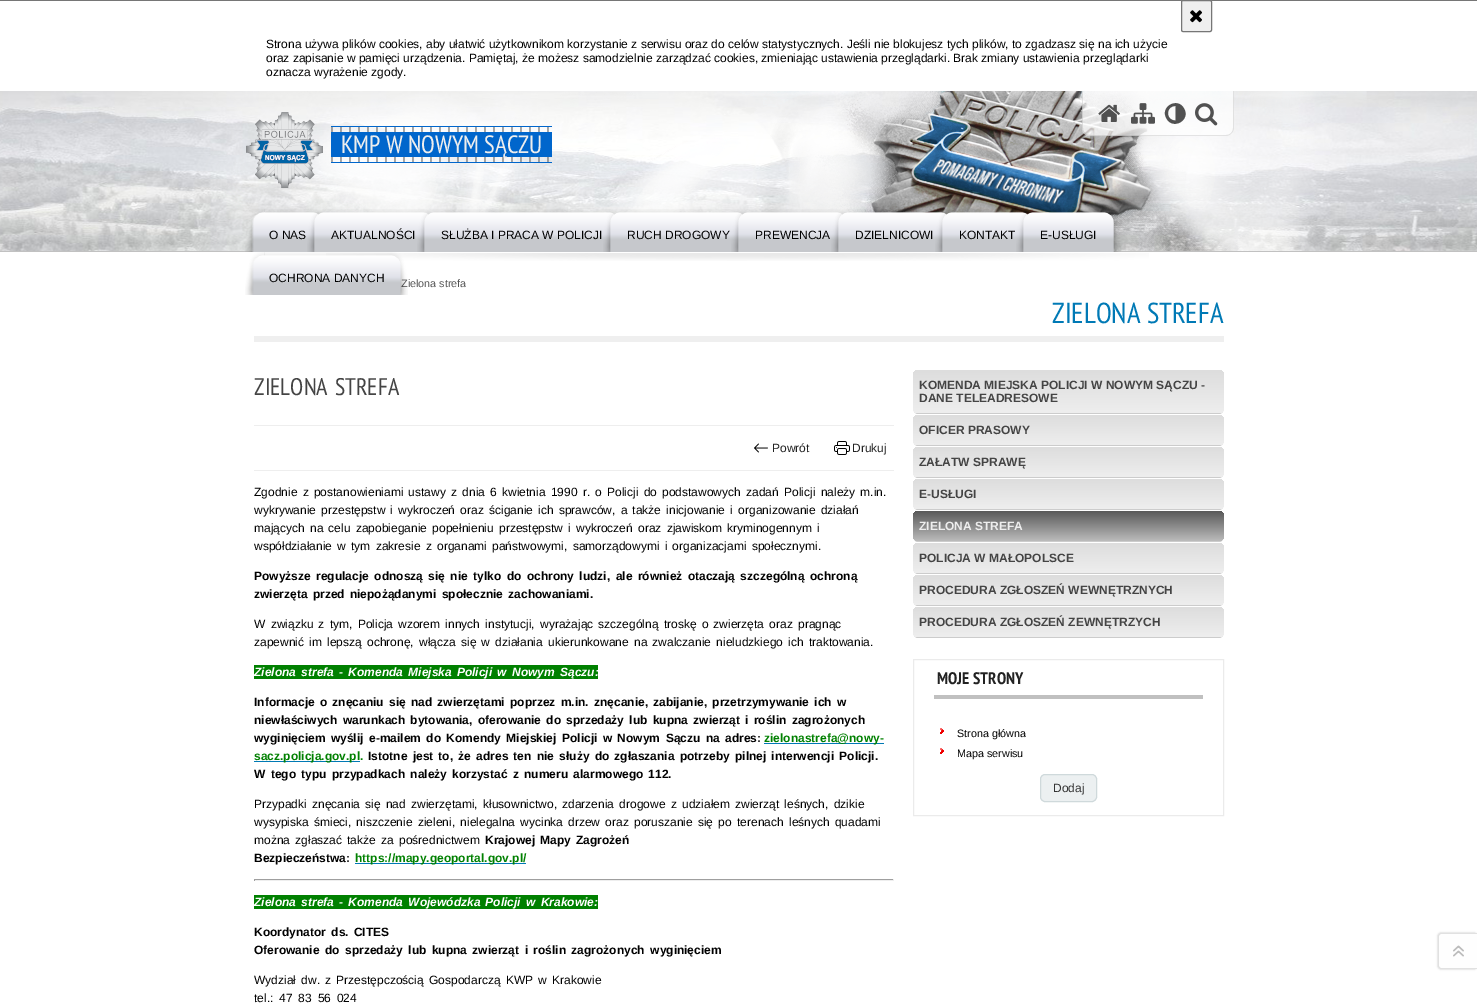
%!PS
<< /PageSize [1477 1004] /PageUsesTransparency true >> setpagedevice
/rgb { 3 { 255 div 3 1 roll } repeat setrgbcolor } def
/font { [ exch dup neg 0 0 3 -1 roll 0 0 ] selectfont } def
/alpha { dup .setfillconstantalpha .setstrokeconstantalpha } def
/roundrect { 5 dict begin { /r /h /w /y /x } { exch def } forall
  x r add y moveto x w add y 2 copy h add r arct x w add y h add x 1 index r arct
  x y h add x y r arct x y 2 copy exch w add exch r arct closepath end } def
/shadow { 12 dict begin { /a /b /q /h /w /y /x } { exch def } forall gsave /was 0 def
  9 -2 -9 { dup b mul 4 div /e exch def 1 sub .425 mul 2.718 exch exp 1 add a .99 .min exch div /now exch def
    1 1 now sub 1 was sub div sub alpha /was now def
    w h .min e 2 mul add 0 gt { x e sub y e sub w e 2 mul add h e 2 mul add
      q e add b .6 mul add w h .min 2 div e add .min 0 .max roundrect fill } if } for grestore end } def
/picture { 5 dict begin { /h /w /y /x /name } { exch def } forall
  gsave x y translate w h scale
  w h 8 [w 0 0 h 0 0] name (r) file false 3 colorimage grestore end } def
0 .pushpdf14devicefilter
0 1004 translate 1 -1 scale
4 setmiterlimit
255 255 255 rgb
0 0 1477 1004 rectfill
118 118 118 rgb
0 0 1477 1 rectfill
239 239 239 rgb
1181.5 0.5 30 31 1.5 roundrect gsave fill grestore
118 118 118 rgb
stroke
(img/1.rgb) 1190 10 12 13 picture
(img/2.rgb) 0 91 1477 160 picture
(img/3.rgb) 326 253 823 8 picture
(img/4.rgb) 137 91 1230 160 picture
193 193 193 rgb
0 251 1477 1 rectfill
0.7 alpha
255 255 255 rgb
1082 91 moveto 1234 91 lineto 1234 128 lineto 1234 132.5 1230.5 136 1226 136 curveto 1090 136 lineto 1085.5 136 1082 132.5 1082 128 curveto closepath fill
0.1 alpha
0 0 0 rgb
1082 91 moveto 1234 91 lineto 1234 128 lineto 1234 132 1230 136 1226 136 curveto 1090 136 lineto 1086 136 1082 132 1082 128 curveto closepath 1083 91 moveto 1233 91 lineto 1233 128 lineto 1233 132 1230 135 1226 135 curveto 1090 135 lineto 1086 135 1083 132 1083 128 curveto closepath eofill
1 alpha
(img/5.rgb) 1098 104 22 18 picture
(img/6.rgb) 1131 103 24 21 picture
81 81 81 rgb
1175.5 120.5 moveto 1175.5 106 lineto 1165.5 106 1165.5 120.5 1175.5 120.5 curveto closepath 1184 108.5 moveto 1191 120 1173 130.5 1166.5 118.5 curveto 1159.5 107 1177.5 96.5 1184 108.5 curveto closepath fill
(img/7.rgb) 1195 103 23 23 picture
(img/8.rgb) 331 127 218 35 picture
0 102 204 rgb
331 126 221 1 rectfill
331 162 221 1 rectfill
(img/9.rgb) 246 112 77 76 picture
331 132 221 25 rectfill
(img/10.rgb) 311 209 10 43 picture
(img/11.rgb) 245 209 20 43 picture
(img/12.rgb) 264 209 47 43 picture
(img/13.rgb) 421 209 10 43 picture
(img/14.rgb) 307 209 19 43 picture
(img/15.rgb) 326 209 95 43 picture
(img/16.rgb) 607 209 10 43 picture
(img/17.rgb) 417 209 19 43 picture
(img/18.rgb) 436 209 171 43 picture
(img/19.rgb) 735 209 10 43 picture
(img/20.rgb) 603 209 19 43 picture
(img/21.rgb) 622 209 113 43 picture
(img/22.rgb) 835 209 10 43 picture
(img/23.rgb) 731 209 19 43 picture
(img/24.rgb) 750 209 85 43 picture
(img/25.rgb) 939 211 10 41 picture
(img/26.rgb) 831 209 19 43 picture
(img/27.rgb) 850 209 89 43 picture
(img/28.rgb) 1020 212 10 40 picture
(img/29.rgb) 935 210 19 42 picture
(img/30.rgb) 954 209 66 43 picture
(img/31.rgb) 1102 212 19 40 picture
(img/32.rgb) 1016 209 19 43 picture
(img/33.rgb) 1035 209 67 43 picture
(img/35.rgb) 245 252 20 43 picture
(img/36.rgb) 264 252 125 43 picture
[
  [254 336 970 6 239 239 239]
  [254 425 640 1 238 238 238]
  [254 470 640 1 238 238 238]
] { aload pop rgb rectfill } forall
(img/37.rgb) 754 443 14 10 picture
(img/38.rgb) 834 441 16 14 picture
[
  [254 665 344 14 0 128 0]
  [764 743 120 1 0 121 181]
  [254 761 106 1 0 121 181]
  [355 863 171 1 0 121 181]
  [254 879 640 1 159 159 159]
  [893 879 1 2 238 238 238]
  [254 880 640 1 238 238 238]
  [254 879 1 2 159 159 159]
  [254 895 344 14 0 128 0]
] { aload pop rgb rectfill } forall
204 204 204 rgb
913 408 moveto 913 411 915 414 918 414 curveto 1219 414 lineto 1222 414 1224 411 1224 408 curveto 1224 411 1222 413 1219 413 curveto 918 413 lineto 915 413 913 411 913 408 curveto closepath fill
gsave 913 370 311 43 5 roundrect clip newpath
<< /ShadingType 2 /ColorSpace /DeviceRGB /Coords [1069 413 1069 370] /Extend [true true] /Function << /FunctionType 2 /Domain [0 1] /C0 [0.933 0.933 0.933] /C1 [0.867 0.867 0.867] /N 1 >> >> shfill grestore
913 440 moveto 913 443 915 446 918 446 curveto 1219 446 lineto 1222 446 1224 443 1224 440 curveto 1224 443 1222 445 1219 445 curveto 918 445 lineto 915 445 913 443 913 440 curveto closepath fill
gsave 913 415 311 30 5 roundrect clip newpath
<< /ShadingType 2 /ColorSpace /DeviceRGB /Coords [1069 445 1069 415] /Extend [true true] /Function << /FunctionType 2 /Domain [0 1] /C0 [0.933 0.933 0.933] /C1 [0.867 0.867 0.867] /N 1 >> >> shfill grestore
913 472 moveto 913 475 915 478 918 478 curveto 1219 478 lineto 1222 478 1224 475 1224 472 curveto 1224 475 1222 477 1219 477 curveto 918 477 lineto 915 477 913 475 913 472 curveto closepath fill
gsave 913 447 311 30 5 roundrect clip newpath
<< /ShadingType 2 /ColorSpace /DeviceRGB /Coords [1069 477 1069 447] /Extend [true true] /Function << /FunctionType 2 /Domain [0 1] /C0 [0.933 0.933 0.933] /C1 [0.867 0.867 0.867] /N 1 >> >> shfill grestore
913 504 moveto 913 507 915 510 918 510 curveto 1219 510 lineto 1222 510 1224 507 1224 504 curveto 1224 507 1222 509 1219 509 curveto 918 509 lineto 915 509 913 507 913 504 curveto closepath fill
gsave 913 479 311 30 5 roundrect clip newpath
<< /ShadingType 2 /ColorSpace /DeviceRGB /Coords [1069 509 1069 479] /Extend [true true] /Function << /FunctionType 2 /Domain [0 1] /C0 [0.933 0.933 0.933] /C1 [0.867 0.867 0.867] /N 1 >> >> shfill grestore
913 536 moveto 913 539 915 542 918 542 curveto 1219 542 lineto 1222 542 1224 539 1224 536 curveto 1224 539 1222 541 1219 541 curveto 918 541 lineto 915 541 913 539 913 536 curveto closepath fill
gsave 913 511 311 30 5 roundrect clip newpath
<< /ShadingType 2 /ColorSpace /DeviceRGB /Coords [1069 541 1069 511] /Extend [true true] /Function << /FunctionType 2 /Domain [0 1] /C0 [0.733 0.733 0.733] /C1 [0.349 0.349 0.349] /N 1 >> >> shfill grestore
913 568 moveto 913 571 915 574 918 574 curveto 1219 574 lineto 1222 574 1224 571 1224 568 curveto 1224 571 1222 573 1219 573 curveto 918 573 lineto 915 573 913 571 913 568 curveto closepath fill
gsave 913 543 311 30 5 roundrect clip newpath
<< /ShadingType 2 /ColorSpace /DeviceRGB /Coords [1069 573 1069 543] /Extend [true true] /Function << /FunctionType 2 /Domain [0 1] /C0 [0.933 0.933 0.933] /C1 [0.867 0.867 0.867] /N 1 >> >> shfill grestore
913 600 moveto 913 603 915 606 918 606 curveto 1219 606 lineto 1222 606 1224 603 1224 600 curveto 1224 603 1222 605 1219 605 curveto 918 605 lineto 915 605 913 603 913 600 curveto closepath fill
gsave 913 575 311 30 5 roundrect clip newpath
<< /ShadingType 2 /ColorSpace /DeviceRGB /Coords [1069 605 1069 575] /Extend [true true] /Function << /FunctionType 2 /Domain [0 1] /C0 [0.933 0.933 0.933] /C1 [0.867 0.867 0.867] /N 1 >> >> shfill grestore
913 632 moveto 913 635 915 638 918 638 curveto 1219 638 lineto 1222 638 1224 635 1224 632 curveto 1224 635 1222 637 1219 637 curveto 918 637 lineto 915 637 913 635 913 632 curveto closepath fill
gsave 913 607 311 30 5 roundrect clip newpath
<< /ShadingType 2 /ColorSpace /DeviceRGB /Coords [1069 637 1069 607] /Extend [true true] /Function << /FunctionType 2 /Domain [0 1] /C0 [0.933 0.933 0.933] /C1 [0.867 0.867 0.867] /N 1 >> >> shfill grestore
235 235 235 rgb
913.5 659.5 310 156 rectstroke
192 192 192 rgb
934 695 269 4 rectfill
(img/39.rgb) 940 728 4 6 picture
(img/39.rgb) 940 748 4 6 picture
236 240 241 rgb
1040.5 774.5 56 27 4.5 roundrect gsave fill grestore
207 217 219 rgb
stroke
0 0 0 rgb
1438 933 39 36 3 1 0.25 shadow
254 254 254 rgb
1441 933 moveto 1477 933 lineto 1477 969 lineto 1441 969 lineto 1439.5 969 1438 967.5 1438 966 curveto 1438 936 lineto 1438 934.5 1439.5 933 1441 933 curveto closepath fill
225 225 225 rgb
1441 933 moveto 1477 933 lineto 1477 969 lineto 1441 969 lineto 1439.5 969 1438 967.5 1438 966 curveto 1438 936 lineto 1438 934.5 1439.5 933 1441 933 curveto closepath 1441 934 moveto 1477 934 lineto 1477 968 lineto 1441 968 lineto 1440 968 1439 967 1439 966 curveto 1439 936 lineto 1439 935 1440 934 1441 934 curveto closepath eofill
(img/40.rgb) 1453 945 11 12 picture
/LiberationSans-Regular 12 font
0 0 0 rgb
[
  [(Strona używa plików cookies, aby ułatwić użytkownikom korzystanie z serwisu oraz do celów statystycznych. Jeśli nie blokujesz tych plików, to zgadzasz się na ich użycie) 266 48]
  [(oraz zapisanie w pamięci urządzenia. Pamiętaj, że możesz samodzielnie zarządzać cookies, zmieniając ustawienia przeglądarki. Brak zmiany ustawienia przeglądarki) 266 62]
  [(oznacza wyrażenie zgody.) 266 76]
] { aload pop moveto show } forall
/PTSansNarrow-Regular 25 font
238 238 238 rgb
341 153 moveto (KMP W NOWYM SĄCZU) show
/LiberationSans-Regular 12 font
0 0 0 rgb
[
  [(O NAS) 269 239]
  [(AKTUALNOŚCI) 331 239]
  [(SŁUŻBA I PRACA W POLICJI) 441 239]
  [(RUCH DROGOWY) 627 239]
  [(PREWENCJA) 755 239]
  [(DZIELNICOWI) 855 239]
  [(KONTAKT) 959 239]
  [(E-USŁUGI) 1040 239]
  [(OCHRONA DANYCH) 269 282]
] { aload pop moveto show } forall
/LiberationSans-Regular 10.75 font
85 85 85 rgb
401 287 moveto (Zielona strefa) show
(img/34.rgb) 389 252 19 43 picture
/PTSansNarrow-Regular 28.75 font
0 121 181 rgb
1052 323 moveto (ZIELONA STREFA) show
/PTSansNarrow-Regular 24 font
68 68 68 rgb
254 395 moveto 1.9 0 32 (ZIELONA STREFA) widthshow
/LiberationSans-Regular 12 font
34 34 34 rgb
772 452 moveto (Powrót) show
852 452 moveto (Drukuj) show
0 0 0 rgb
254 496 moveto 1.9 0 32 (Zgodnie z postanowieniami ustawy z dnia 6 kwietnia 1990 r. o Policji do podstawowych zadań Policji należy m.in.) widthshow
254 514 moveto 1.9 0 32 (wykrywanie przestępstw i wykroczeń oraz ściganie ich sprawców, a także inicjowanie i organizowanie działań) widthshow
254 532 moveto 1.9 0 32 (mających na celu zapobieganie popełnieniu przestępstw i wykroczeń oraz zjawiskom kryminogennym i) widthshow
254 550 moveto 1.9 0 32 (współdziałanie w tym zakresie z organami państwowymi, samorządowymi i organizacjami społecznymi.) widthshow
/LiberationSans-Bold 12 font
254 580 moveto 2.1 0 32 (Powyższe regulacje odnoszą się nie tylko do ochrony ludzi, ale również otaczają szczególną ochroną) widthshow
254 598 moveto 1.9 0 32 (zwierzęta przed niepożądanymi społecznie zachowaniami.) widthshow
/LiberationSans-Regular 12 font
254 628 moveto 1.9 0 32 (W związku z tym, Policja wzorem innych instytucji, wyrażając szczególną troskę o zwierzęta oraz pragnąc) widthshow
254 646 moveto 1.9 0 32 (zapewnić im lepszą ochronę, włącza się w działania ukierunkowane na zwalczanie nieludzkiego ich traktowania.) widthshow
/LiberationSans-BoldItalic 12 font
255 255 255 rgb
254 676 moveto 1.9 0 32 (Zielona strefa - Komenda Miejska Policji w Nowym Sączu:) widthshow
/LiberationSans-Bold 12 font
0 0 0 rgb
254 706 moveto 1.9 0 32 (Informacje o znęcaniu się nad zwierzętami poprzez m.in. znęcanie, zabijanie, przetrzymywanie ich w) widthshow
254 724 moveto 1.9 0 32 (niewłaściwych warunkach bytowania, oferowanie do sprzedaży lub kupna zwierząt i roślin zagrożonych) widthshow
254 742 moveto 2.1 0 32 (wyginięciem wyślij e-mailem do Komendy Miejskiej Policji w Nowym Sączu na adres:) widthshow
0 128 0 rgb
764 742 moveto (zielonastrefa@nowy-) show
254 760 moveto (sacz.policja.gov.pl.) show
0 0 0 rgb
368 760 moveto 1.9 0 32 (Istotne jest to, że adres ten nie służy do zgłaszania potrzeby pilnej interwencji Policji.) widthshow
254 778 moveto 1.9 0 32 (W tego typu przypadkach należy korzystać z numeru alarmowego 112.) widthshow
/LiberationSans-Regular 12 font
254 808 moveto 1.9 0 32 (Przypadki znęcania się nad zwierzętami, kłusownictwo, zdarzenia drogowe z udziałem zwierząt leśnych, dzikie) widthshow
254 826 moveto 1.9 0 32 (wysypiska śmieci, niszczenie zieleni, nielegalna wycinka drzew oraz poruszanie się po terenach leśnych quadami) widthshow
254 844 moveto 1.9 0 32 (można zgłaszać także za pośrednictwem) widthshow
/LiberationSans-Bold 12 font
485 844 moveto 1.9 0 32 (Krajowej Mapy Zagrożeń) widthshow
254 862 moveto (Bezpieczeństwa:) show
0 128 0 rgb
355 862 moveto (https://mapy.geoportal.gov.pl/) show
/LiberationSans-BoldItalic 12 font
255 255 255 rgb
254 906 moveto 1.9 0 32 (Zielona strefa - Komenda Wojewódzka Policji w Krakowie:) widthshow
/LiberationSans-Bold 12 font
0 0 0 rgb
254 936 moveto 1.9 0 32 (Koordynator ds. CITES) widthshow
254 954 moveto 2.1 0 32 (Oferowanie do sprzedaży lub kupna zwierząt i roślin zagrożonych wyginięciem) widthshow
/LiberationSans-Regular 12 font
254 984 moveto 1.9 0 32 (Wydział dw. z Przestępczością Gospodarczą KWP w Krakowie) widthshow
254 1002 moveto 2.5 0 32 (tel.: 47 83 56 024) widthshow
/LiberationSans-Bold 12 font
68 68 68 rgb
[
  [(KOMENDA MIEJSKA POLICJI W NOWYM SĄCZU -) 919 389]
  [(DANE TELEADRESOWE) 919 402]
  [(OFICER PRASOWY) 919 434]
  [(ZAŁATW SPRAWĘ) 919 466]
  [(E-USŁUGI) 919 498]
] { aload pop moveto show } forall
238 238 238 rgb
919 530 moveto (ZIELONA STREFA) show
68 68 68 rgb
[
  [(POLICJA W MAŁOPOLSCE) 919 562]
  [(PROCEDURA ZGŁOSZEŃ WEWNĘTRZNYCH) 919 594]
  [(PROCEDURA ZGŁOSZEŃ ZEWNĘTRZYCH) 919 626]
] { aload pop moveto show } forall
/PTSansNarrow-Bold 16.75 font
34 34 34 rgb
937 684 moveto (MOJE STRONY) show
/LiberationSans-Regular 10.75 font
0 0 0 rgb
957 737 moveto (Strona główna) show
957 757 moveto (Mapa serwisu) show
/LiberationSans-Regular 12 font
51 51 51 rgb
1053 792 moveto (Dodaj) show
.poppdf14devicefilter showpage
